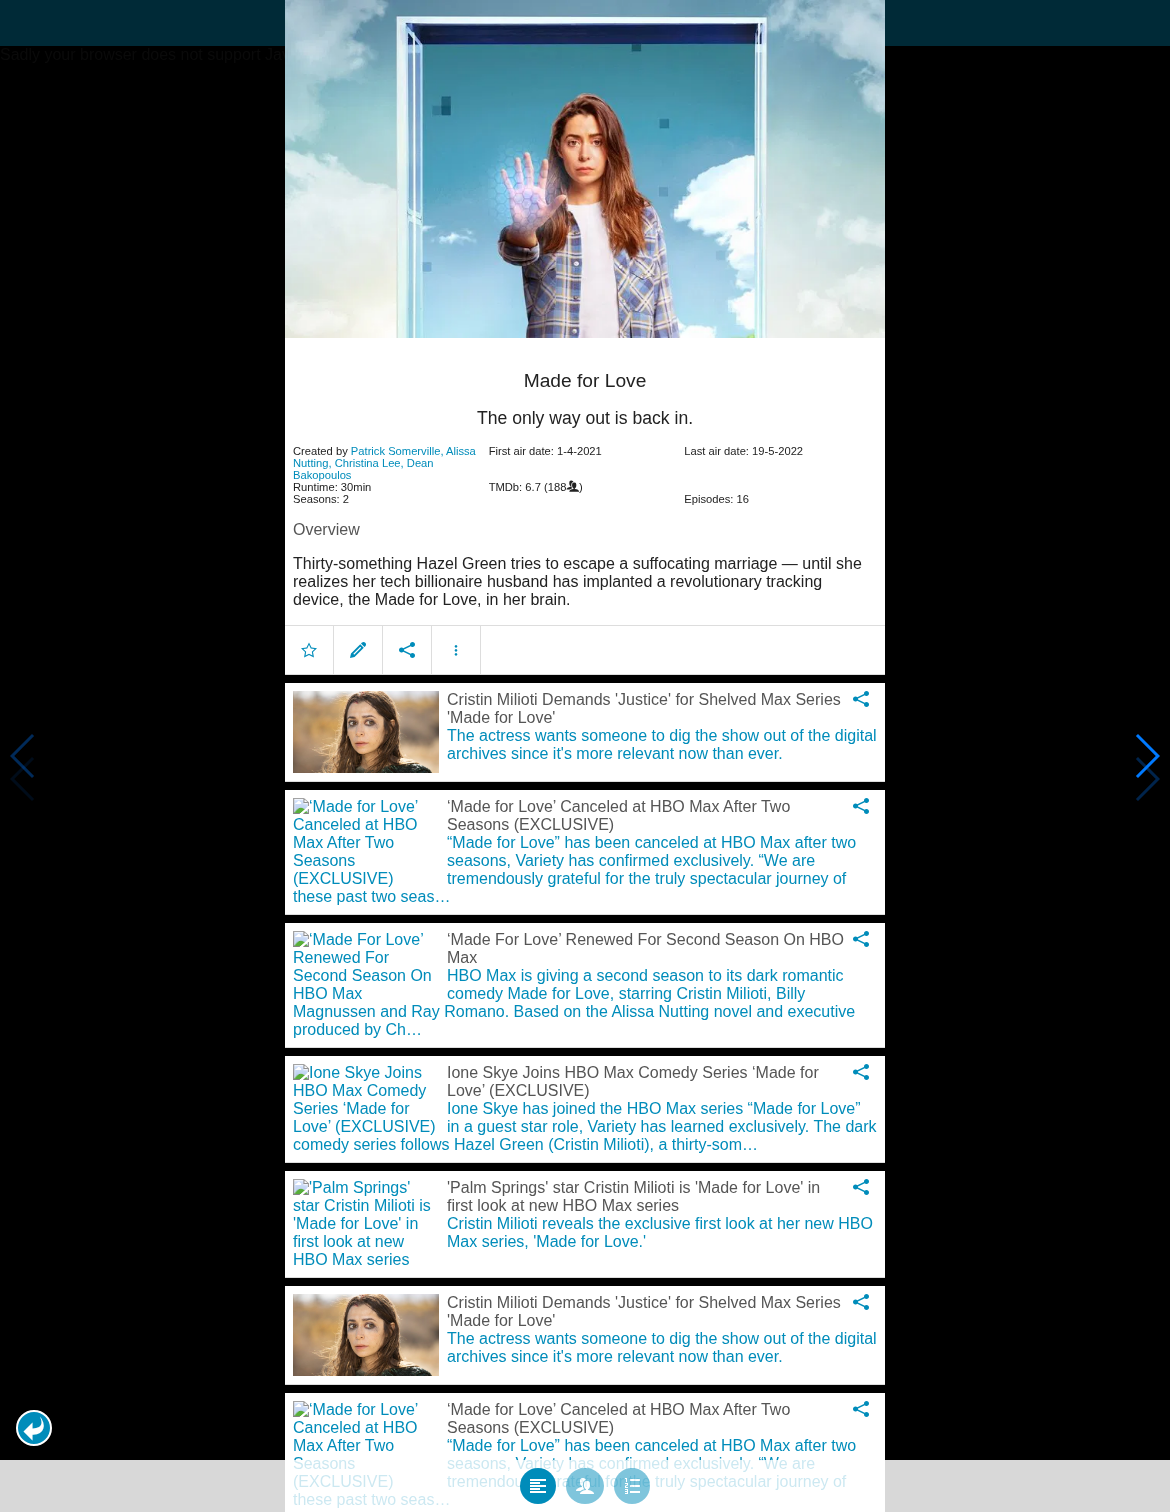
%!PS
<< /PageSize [1170 1512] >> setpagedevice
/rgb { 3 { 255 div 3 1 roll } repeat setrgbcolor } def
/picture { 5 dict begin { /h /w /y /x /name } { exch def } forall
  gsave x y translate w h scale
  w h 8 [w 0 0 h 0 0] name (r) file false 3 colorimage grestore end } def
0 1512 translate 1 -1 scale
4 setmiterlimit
255 255 255 rgb
0 0 1170 1512 rectfill
(img/1.rgb) 0 0 1170 1512 picture
showpage
